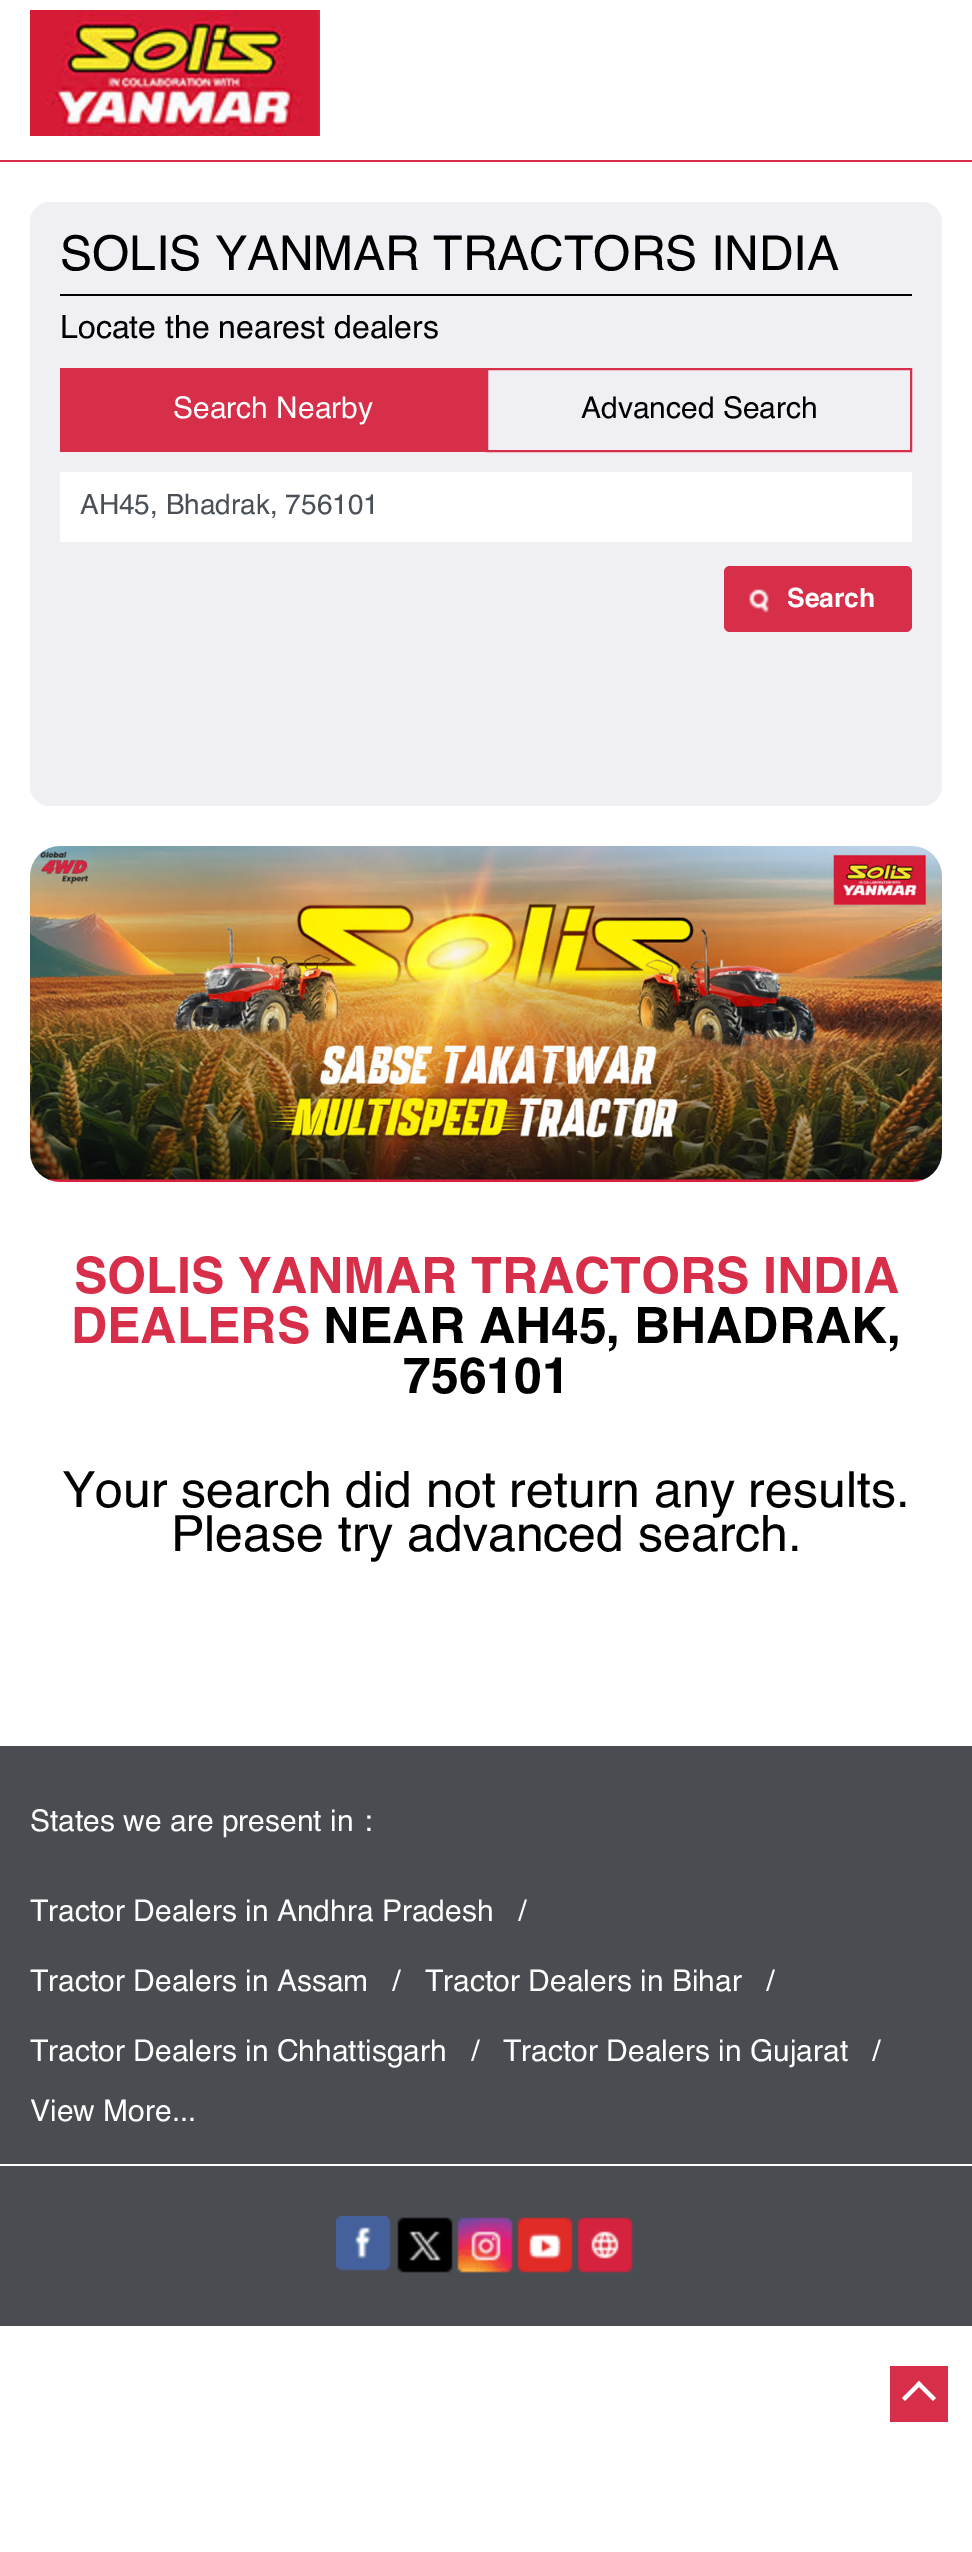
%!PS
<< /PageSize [972 2552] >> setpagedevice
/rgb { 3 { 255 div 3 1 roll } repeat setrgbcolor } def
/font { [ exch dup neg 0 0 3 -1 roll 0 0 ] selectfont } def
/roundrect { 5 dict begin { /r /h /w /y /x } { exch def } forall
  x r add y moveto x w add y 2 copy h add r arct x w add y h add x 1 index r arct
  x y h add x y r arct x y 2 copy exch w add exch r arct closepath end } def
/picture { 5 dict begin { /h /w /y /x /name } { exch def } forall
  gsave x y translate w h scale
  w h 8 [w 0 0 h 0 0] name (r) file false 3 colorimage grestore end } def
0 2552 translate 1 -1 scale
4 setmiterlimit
255 255 255 rgb
0 0 972 2552 rectfill
215 47 73 rgb
0 160 972 2 rectfill
(img/1.rgb) 30 10 290 126 picture
240 239 244 rgb
30 202 912 604 20 roundrect fill
0 0 0 rgb
60 294 852 2 rectfill
215 47 73 rgb
60 368 426 84 rectfill
2 setlinewidth
487 369 424 82 rectstroke
255 255 255 rgb
60 472 852 70 rectfill
215 47 73 rgb
724 566 188 66 6 roundrect fill
(img/2.rgb) 749 589 20 24 picture
(img/3.rgb) 30 846 912 336 picture
73 76 81 rgb
0 1746 972 580 rectfill
255 255 255 rgb
0 2164 972 2 rectfill
(img/4.rgb) 336 2216 55 55 picture
(img/5.rgb) 397 2217 56 56 picture
(img/6.rgb) 457 2217 56 56 picture
(img/7.rgb) 517 2217 56 56 picture
(img/8.rgb) 577 2217 56 56 picture
215 47 73 rgb
890 2366 58 56 rectfill
255 255 255 rgb
905 2401 moveto 902 2398 lineto 919 2381 lineto 922 2384 lineto closepath fill
933 2401 moveto 916 2384 lineto 919 2381 lineto 936 2398 lineto closepath fill
/Helvetica-Regular 48 font
0 0 0 rgb
60 270 moveto (SOLIS YANMAR TRACTORS INDIA) show
/Helvetica-Regular 32 font
60 338 moveto (Locate the nearest dealers) show
/Helvetica-Regular 30 font
255 255 255 rgb
173 418 moveto (Search Nearby) show
0 0 0 rgb
581 418 moveto (Advanced Search) show
/Helvetica-Regular 28 font
73 80 87 rgb
80 514 moveto (AH45, Bhadrak, 756101) show
/Helvetica-Bold 26.5 font
255 255 255 rgb
787 607 moveto (Search) show
/Helvetica-Bold 50 font
215 47 73 rgb
74 1293 moveto (SOLIS YANMAR TRACTORS INDIA) show
71 1343 moveto (DEALERS) show
0 0 0 rgb
323 1343 moveto (NEAR AH45, BHADRAK,) show
403 1393 moveto (756101) show
/Helvetica-Regular 50 font
62 1507 moveto (Your search did not return any results.) show
171 1551 moveto (Please try advanced search.) show
/Helvetica-Regular 30 font
255 255 255 rgb
[
  [(States we are present in) 30 1831]
  [(:) 364 1831]
  [(Tractor Dealers in Andhra Pradesh) 30 1921]
  [(/) 518 1921]
  [(Tractor Dealers in Assam) 30 1991]
  [(/) 392 1991]
  [(Tractor Dealers in Bihar) 425 1991]
  [(/) 766 1991]
  [(Tractor Dealers in Chhattisgarh) 30 2061]
  [(/) 471 2061]
  [(Tractor Dealers in Gujarat) 503 2061]
  [(/) 872 2061]
  [(View More...) 30 2121]
] { aload pop moveto show } forall
showpage
